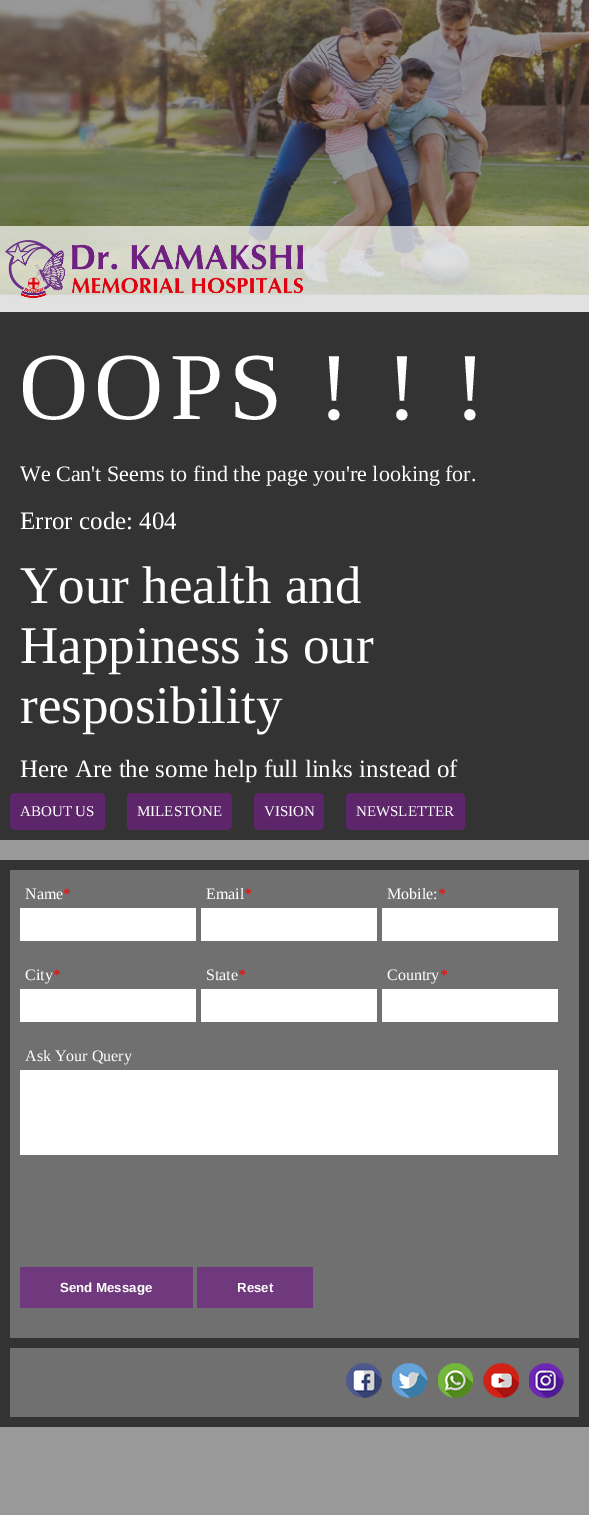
%!PS
<< /PageSize [589 1515] /PageUsesTransparency true >> setpagedevice
/rgb { 3 { 255 div 3 1 roll } repeat setrgbcolor } def
/font { [ exch dup neg 0 0 3 -1 roll 0 0 ] selectfont } def
/alpha { dup .setfillconstantalpha .setstrokeconstantalpha } def
/roundrect { 5 dict begin { /r /h /w /y /x } { exch def } forall
  x r add y moveto x w add y 2 copy h add r arct x w add y h add x 1 index r arct
  x y h add x y r arct x y 2 copy exch w add exch r arct closepath end } def
/picture { 5 dict begin { /h /w /y /x /name } { exch def } forall
  gsave x y translate w h scale
  w h 8 [w 0 0 h 0 0] name (r) file false 3 colorimage grestore end } def
0 .pushpdf14devicefilter
0 1515 translate 1 -1 scale
4 setmiterlimit
153 153 153 rgb
0 0 589 1515 rectfill
(img/1.rgb) 0 0 589 295 picture
0.7 alpha
255 255 255 rgb
0 226 589 86 rectfill
1 alpha
(img/2.rgb) 5 240 298 58 picture
51 51 51 rgb
0 312 589 528 rectfill
94 38 106 rgb
10 793 95 37 5 roundrect fill
127 793 105 37 5 roundrect fill
254 793 70 37 5 roundrect fill
346 793 119 37 5 roundrect fill
[
  [0 860 589 567 51 51 51]
  [10 870 569 468 112 112 112]
  [20 908 176 33 255 255 255]
  [201 908 176 33 255 255 255]
  [382 908 176 33 255 255 255]
  [20 989 176 33 255 255 255]
  [201 989 176 33 255 255 255]
  [382 989 176 33 255 255 255]
  [20 1070 538 85 255 255 255]
  [20 1267 173 41 112 56 125]
  [197 1267 116 41 112 56 125]
  [10 1348 569 69 112 112 112]
] { aload pop rgb rectfill } forall
(img/3.rgb) 346 1363 36 35 picture
(img/4.rgb) 392 1363 36 35 picture
(img/5.rgb) 438 1363 35 35 picture
(img/6.rgb) 483 1363 36 35 picture
(img/7.rgb) 529 1363 35 35 picture
/LiberationSerif-Regular 96 font
255 255 255 rgb
19 419 moveto 6 0 (OOPS ! ! !) ashow
/LiberationSerif-Regular 22 font
20 481 moveto (We Can't Seems to find the page you're looking for.) show
/LiberationSerif-Regular 25 font
20 529 moveto (Error code: 404) show
/LiberationSerif-Regular 53 font
[
  [(Your health and) 20 603]
  [(Happiness is our) 20 663]
  [(resposibility) 20 723]
] { aload pop moveto show } forall
/LiberationSerif-Regular 25 font
20 777 moveto (Here Are the some help full links instead of) show
/LiberationSerif-Regular 15 font
[
  [(ABOUT US) 20 816]
  [(MILESTONE) 137 816]
  [(VISION) 264 816]
  [(NEWSLETTER) 356 816]
] { aload pop moveto show } forall
/LiberationSerif-Regular 16 font
25 899 moveto (Name) show
255 0 0 rgb
63 899 moveto (*) show
255 255 255 rgb
206 899 moveto (Email) show
255 0 0 rgb
244 899 moveto (*) show
255 255 255 rgb
387 899 moveto (Mobile:) show
255 0 0 rgb
438 899 moveto (*) show
255 255 255 rgb
25 980 moveto (City) show
255 0 0 rgb
53 980 moveto (*) show
255 255 255 rgb
206 980 moveto (State) show
255 0 0 rgb
238 980 moveto (*) show
255 255 255 rgb
387 980 moveto (Country) show
255 0 0 rgb
440 980 moveto (*) show
255 255 255 rgb
25 1061 moveto (Ask Your Query) show
/LiberationSans-Bold 13.25 font
60 1292 moveto (Send Message) show
237 1292 moveto (Reset) show
.poppdf14devicefilter showpage
